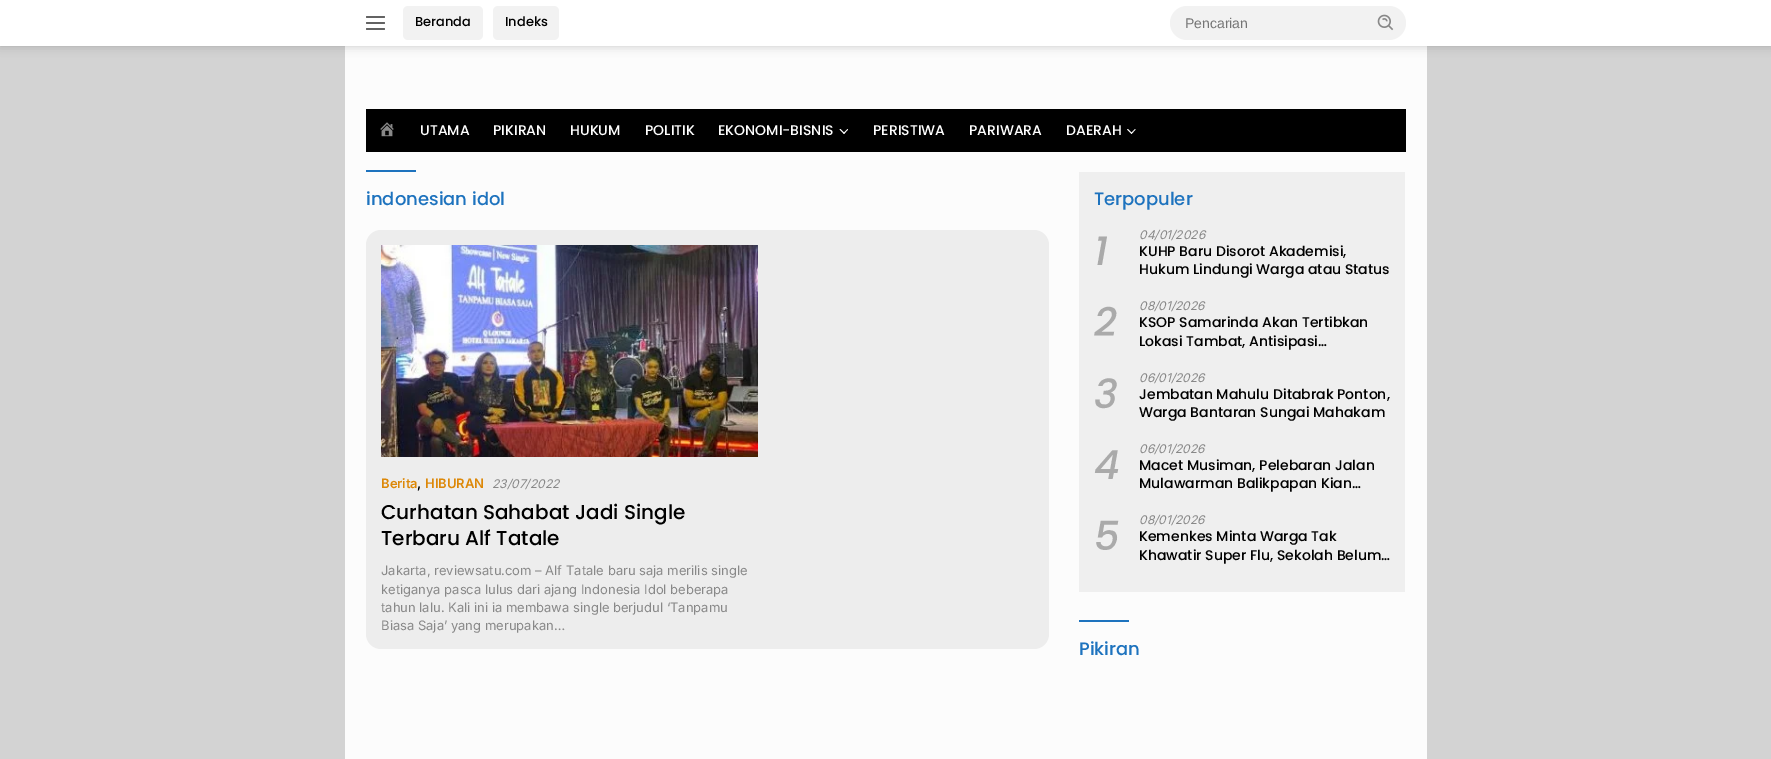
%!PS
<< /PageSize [1771 759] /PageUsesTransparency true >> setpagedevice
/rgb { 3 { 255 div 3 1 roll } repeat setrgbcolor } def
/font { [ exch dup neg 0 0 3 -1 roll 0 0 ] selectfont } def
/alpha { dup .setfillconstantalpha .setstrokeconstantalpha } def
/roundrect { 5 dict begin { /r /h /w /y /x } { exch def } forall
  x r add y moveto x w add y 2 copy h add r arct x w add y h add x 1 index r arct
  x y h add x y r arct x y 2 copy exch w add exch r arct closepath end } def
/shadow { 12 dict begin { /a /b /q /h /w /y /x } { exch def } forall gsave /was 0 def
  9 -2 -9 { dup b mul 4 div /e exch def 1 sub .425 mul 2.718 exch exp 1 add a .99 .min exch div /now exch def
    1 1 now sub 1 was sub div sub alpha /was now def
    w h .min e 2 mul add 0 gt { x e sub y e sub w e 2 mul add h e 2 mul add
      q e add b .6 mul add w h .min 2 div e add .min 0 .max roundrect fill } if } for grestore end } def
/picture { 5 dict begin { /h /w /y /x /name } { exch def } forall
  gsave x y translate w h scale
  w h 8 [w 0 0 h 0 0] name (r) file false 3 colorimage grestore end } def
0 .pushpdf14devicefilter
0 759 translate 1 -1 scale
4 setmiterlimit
211 211 211 rgb
0 0 1771 759 rectfill
252 252 252 rgb
345 46 1082 713 rectfill
0 0 0 rgb
0 0 1771 46 0 5 0.2 shadow
255 255 255 rgb
0 0 1771 46 rectfill
99 99 99 rgb
366 16 19 2 1 roundrect fill
366 22 19 2 1 roundrect fill
366 28 19 2 1 roundrect fill
242 242 242 rgb
403 6 80 34 5 roundrect fill
493 6 66 34 5 roundrect fill
1170 6 236 34 17 roundrect fill
(img/1.rgb) 1377 14 17 17 picture
0 0 0 rgb
366 109 1040 43 rectfill
(img/2.rgb) 380 122 14 15 picture
255 255 255 rgb
847.5 129 moveto 848 129.5 lineto 844 134 lineto 843.5 133 lineto closepath fill
840.5 129 moveto 844.5 133 lineto 844 134 lineto 839.5 129.5 lineto closepath fill
1135 129 moveto 1135.5 129.5 lineto 1131.5 134 lineto 1131 133 lineto closepath fill
1128 129 moveto 1132 133 lineto 1131.5 134 lineto 1127 129.5 lineto closepath fill
30 115 190 rgb
366 170 50 2 rectfill
237 237 237 rgb
366 230 683 419 15 roundrect fill
(img/3.rgb) 381 245 377 212 picture
239 239 239 rgb
1079 172 326 420 rectfill
30 115 190 rgb
1079 620 50 2 rectfill
/Poppins-Medium 13 font
0 0 0 rgb
415 26 moveto (Beranda) show
505 26 moveto (Indeks) show
/LiberationSans-Regular 14 font
117 117 117 rgb
1185 28 moveto (Pencarian) show
/Poppins-Medium 14 font
255 255 255 rgb
[
  [(UTAMA) 420 135]
  [(PIKIRAN) 493 135]
  [(HUKUM) 570 135]
  [(POLITIK) 645 135]
  [(EKONOMI-BISNIS) 718 135]
  [(PERISTIWA) 873 135]
  [(PARIWARA) 969 135]
  [(DAERAH) 1066 135]
] { aload pop moveto show } forall
/Poppins-Medium 18 font
30 115 190 rgb
366 205 moveto (indonesian idol) show
/Inter-SemiBold 13 font
221 136 8 rgb
381 488 moveto (Berita) show
0 0 0 rgb
417 488 moveto (,) show
221 136 8 rgb
425 488 moveto (HIBURAN) show
/Inter-Italic 12 font
136 136 136 rgb
492 488 moveto (23/07/2022) show
/Poppins-Medium 20 font
0 0 0 rgb
381 519 moveto (Curhatan Sahabat Jadi Single) show
381 545 moveto (Terbaru Alf Tatale) show
/Inter-Regular 13 font
136 136 136 rgb
[
  [(Jakarta, reviewsatu.com – Alf Tatale baru saja merilis single) 381 575]
  [(ketiganya pasca lulus dari ajang Indonesia Idol beberapa) 381 594]
  [(tahun lalu. Kali ini ia membawa single berjudul ‘Tanpamu) 381 612]
  [(Biasa Saja’ yang merupakan…) 381 630]
] { aload pop moveto show } forall
/Poppins-Medium 18 font
30 115 190 rgb
1094 205 moveto (Terpopuler) show
/Poppins-MediumItalic 40 font
170 170 170 rgb
1094 265 moveto (1) show
/Inter-Italic 12 font
136 136 136 rgb
1139 239 moveto (04/01/2026) show
/Poppins-Medium 14 font
0 0 0 rgb
1139 256 moveto (KUHP Baru Disorot Akademisi,) show
1139 274 moveto (Hukum Lindungi Warga atau Status) show
/Poppins-MediumItalic 40 font
170 170 170 rgb
1094 336 moveto (2) show
/Inter-Italic 12 font
136 136 136 rgb
1139 310 moveto (08/01/2026) show
/Poppins-Medium 14 font
0 0 0 rgb
1139 327 moveto (KSOP Samarinda Akan Tertibkan) show
1139 346 moveto (Lokasi Tambat, Antisipasi…) show
/Poppins-MediumItalic 40 font
170 170 170 rgb
1094 408 moveto (3) show
/Inter-Italic 12 font
136 136 136 rgb
1139 382 moveto (06/01/2026) show
/Poppins-Medium 14 font
0 0 0 rgb
1139 399 moveto (Jembatan Mahulu Ditabrak Ponton,) show
1139 417 moveto (Warga Bantaran Sungai Mahakam) show
/Poppins-MediumItalic 40 font
170 170 170 rgb
1094 479 moveto (4) show
/Inter-Italic 12 font
136 136 136 rgb
1139 453 moveto (06/01/2026) show
/Poppins-Medium 14 font
0 0 0 rgb
1139 470 moveto (Macet Musiman, Pelebaran Jalan) show
1139 488 moveto (Mulawarman Balikpapan Kian…) show
/Poppins-MediumItalic 40 font
170 170 170 rgb
1094 550 moveto (5) show
/Inter-Italic 12 font
136 136 136 rgb
1139 524 moveto (08/01/2026) show
/Poppins-Medium 14 font
0 0 0 rgb
1139 541 moveto (Kemenkes Minta Warga Tak) show
1139 560 moveto (Khawatir Super Flu, Sekolah Belum…) show
/Poppins-Medium 18 font
30 115 190 rgb
1079 655 moveto (Pikiran) show
.poppdf14devicefilter showpage
